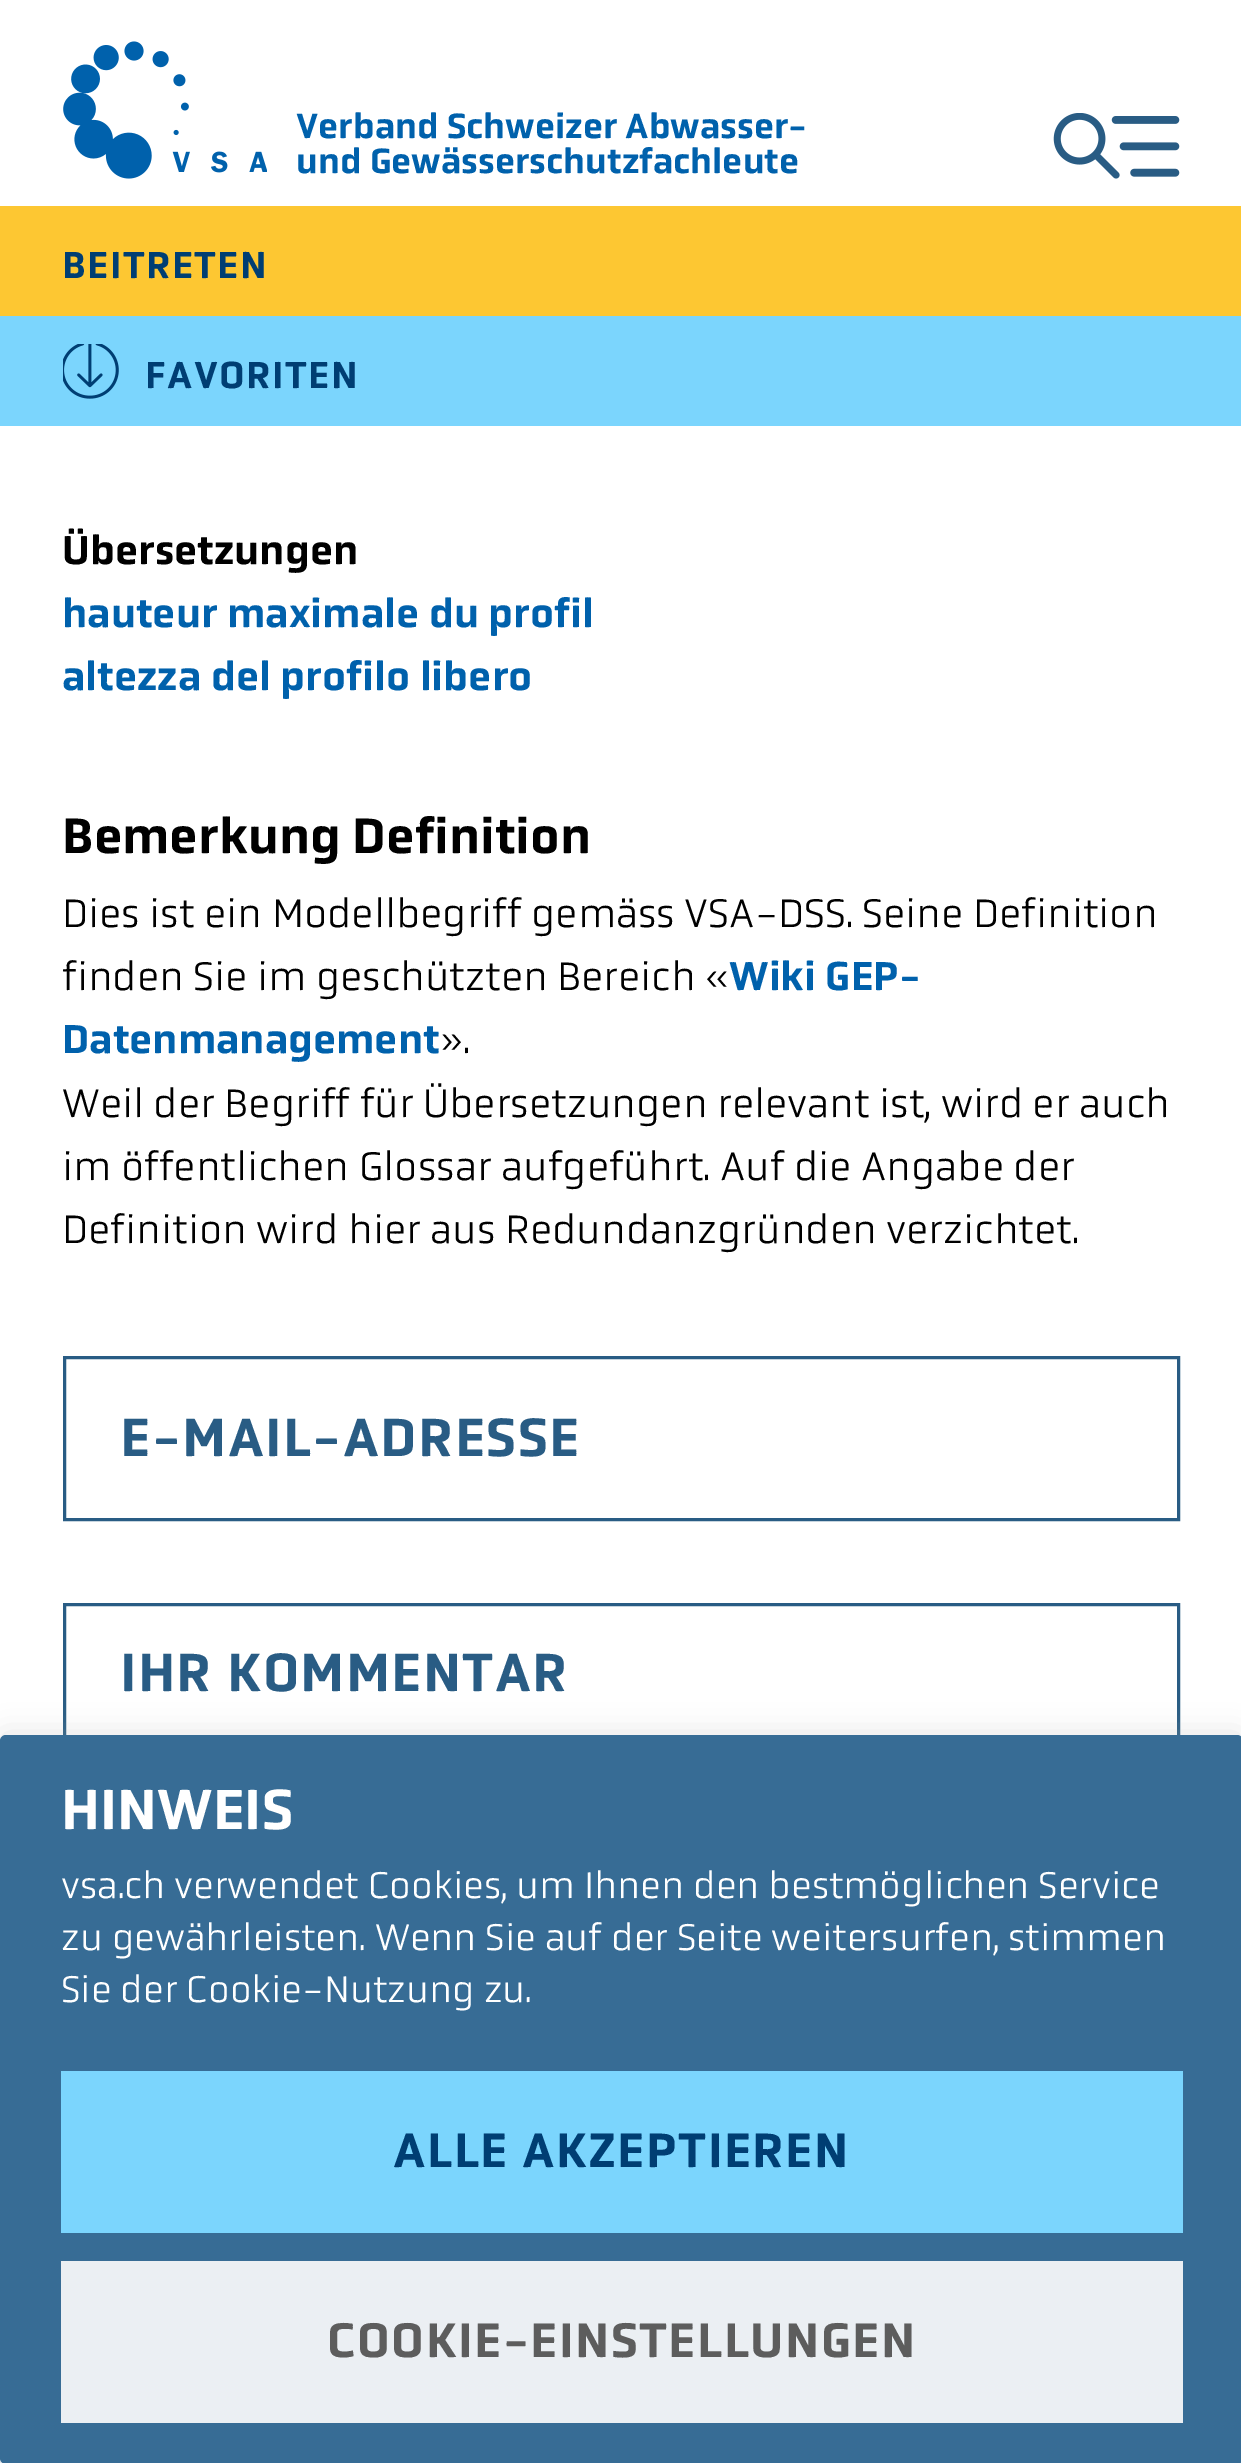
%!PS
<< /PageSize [1241 2463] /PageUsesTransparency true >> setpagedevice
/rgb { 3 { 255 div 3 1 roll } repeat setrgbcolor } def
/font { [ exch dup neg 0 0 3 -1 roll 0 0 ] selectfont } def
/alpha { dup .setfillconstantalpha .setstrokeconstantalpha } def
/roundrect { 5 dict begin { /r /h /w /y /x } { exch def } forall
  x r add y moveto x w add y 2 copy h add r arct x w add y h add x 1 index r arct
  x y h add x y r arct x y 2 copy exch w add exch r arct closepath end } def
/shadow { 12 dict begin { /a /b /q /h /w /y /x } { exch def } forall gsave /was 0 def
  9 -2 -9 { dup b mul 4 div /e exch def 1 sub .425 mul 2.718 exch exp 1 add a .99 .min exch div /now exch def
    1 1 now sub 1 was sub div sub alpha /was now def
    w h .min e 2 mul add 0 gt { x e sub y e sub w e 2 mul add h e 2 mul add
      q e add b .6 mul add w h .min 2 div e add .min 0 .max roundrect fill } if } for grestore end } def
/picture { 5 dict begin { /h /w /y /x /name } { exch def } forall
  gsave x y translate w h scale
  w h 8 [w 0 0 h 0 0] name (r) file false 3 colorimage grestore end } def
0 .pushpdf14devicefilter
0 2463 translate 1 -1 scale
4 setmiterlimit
255 255 255 rgb
0 0 1241 2463 rectfill
(img/1.rgb) 63 41 204 138 picture
(img/2.rgb) 1053 113 127 66 picture
253 199 50 rgb
0 206 1241 110 rectfill
123 213 253 rgb
0 316 1241 110 rectfill
(img/3.rgb) 63 344 56 55 picture
41 92 132 rgb
3 setlinewidth
64.5 1357.5 1114 162 rectstroke
64.5 1604.5 1114 162 rectstroke
235 239 243 rgb
0 2458 1241 5 rectfill
172 171 171 rgb
0 1733 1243 728 6 14 0.3 shadow
55 108 149 rgb
0 1735 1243 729 6 roundrect fill
123 213 253 rgb
61 2071 1122 162 rectfill
235 239 243 rgb
61 2261 1122 162 rectfill
/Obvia-Medium 35.75 font
0 97 172 rgb
296 138 moveto (Verband Schweizer Abwasser-) show
296 173 moveto (und Gewässerschutzfachleute) show
/Obvia-Medium 38.5 font
0 62 115 rgb
62 278 moveto 1.4 0 (BEITRETEN) ashow
145 388 moveto 1.4 0 (FAVORITEN) ashow
/Obvia-Medium 41.25 font
0 0 0 rgb
62 564 moveto (Übersetzungen) show
0 97 172 rgb
62 627 moveto (hauteur maximale du profil) show
62 690 moveto (altezza del profilo libero) show
/Obvia-Medium 50.9 font
0 0 0 rgb
62 853 moveto (Bemerkung Definition) show
/Obvia-Light 41.25 font
62 927 moveto (Dies ist ein Modellbegriff gemäss VSA-DSS. Seine Definition) show
62 990 moveto (finden Sie im geschützten Bereich «) show
/Obvia-Medium 41.25 font
0 97 172 rgb
729 990 moveto (Wiki GEP-) show
62 1053 moveto (Datenmanagement) show
/Obvia-Light 41.25 font
0 0 0 rgb
[
  [(».) 440 1053]
  [(Weil der Begriff für Übersetzungen relevant ist, wird er auch) 62 1117]
  [(im öffentlichen Glossar aufgeführt. Auf die Angabe der) 62 1180]
  [(Definition wird hier aus Redundanzgründen verzichtet.) 62 1243]
] { aload pop moveto show } forall
/Obvia-Medium 55 font
41 92 132 rgb
120 1456 moveto 1.4 0 (E-MAIL-ADRESSE) ashow
120 1691 moveto 1.4 0 (IHR KOMMENTAR) ashow
/Obvia-Medium 57.75 font
255 255 255 rgb
61 1829 moveto (HINWEIS) show
/Obvia-Light 38.5 font
[
  [(vsa.ch verwendet Cookies, um Ihnen den bestmöglichen Service) 61 1898]
  [(zu gewährleisten. Wenn Sie auf der Seite weitersurfen, stimmen) 61 1950]
  [(Sie der Cookie-Nutzung zu.) 61 2002]
] { aload pop moveto show } forall
/Obvia-Medium 49.5 font
0 62 115 rgb
393 2167 moveto 1.4 0 (ALLE AKZEPTIEREN) ashow
93 93 93 rgb
327 2357 moveto 1.4 0 (COOKIE-EINSTELLUNGEN) ashow
.poppdf14devicefilter showpage
